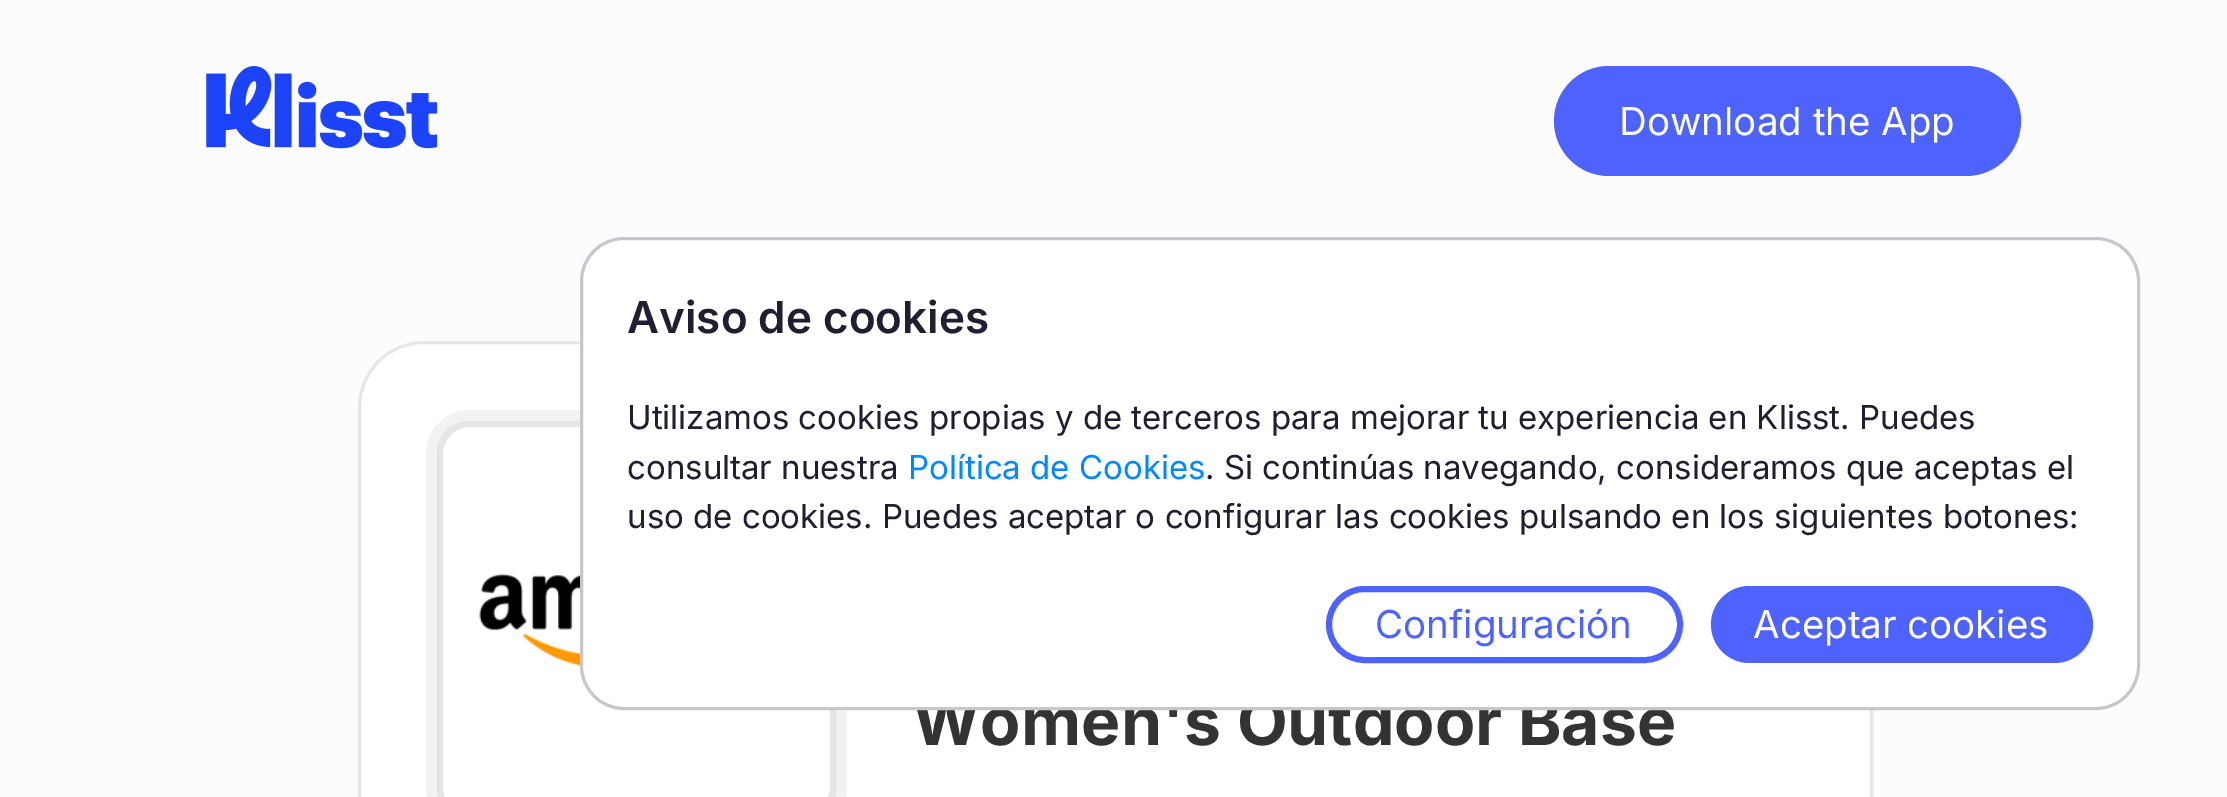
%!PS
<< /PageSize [2227 797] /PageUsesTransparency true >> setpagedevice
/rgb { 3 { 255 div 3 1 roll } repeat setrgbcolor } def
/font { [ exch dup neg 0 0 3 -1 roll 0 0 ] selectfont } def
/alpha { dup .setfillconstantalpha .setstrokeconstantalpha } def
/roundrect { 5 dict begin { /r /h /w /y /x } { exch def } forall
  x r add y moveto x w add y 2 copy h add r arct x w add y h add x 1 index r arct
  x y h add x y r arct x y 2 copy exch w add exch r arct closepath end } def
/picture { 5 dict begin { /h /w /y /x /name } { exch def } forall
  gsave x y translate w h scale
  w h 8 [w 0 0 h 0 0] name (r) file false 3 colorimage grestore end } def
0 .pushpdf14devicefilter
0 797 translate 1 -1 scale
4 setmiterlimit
252 252 252 rgb
0 0 2227 797 rectfill
(img/1.rgb) 206 66 231 83 picture
78 98 253 rgb
1554 66 467 110 55 roundrect fill
255 255 255 rgb
359.5 342.5 1512 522 64.5 roundrect gsave fill grestore
229 230 230 rgb
3 setlinewidth
stroke
242 242 242 rgb
426 410 421 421 44 roundrect fill
(img/2.rgb) 437 421 399 376 picture
0.1 alpha
0 0 0 rgb
6 setlinewidth
440 424 393 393 30 roundrect stroke
/Inter-Regular 38.5 font
1 alpha
255 255 255 rgb
1619 135 moveto (Download the App) show
/Inter-Bold 66 font
51 51 51 rgb
912 745 moveto (Women's Outdoor Base) show
255 255 255 rgb
581.5 238.5 1557 470 42.5 roundrect gsave fill grestore
196 200 202 rgb
3 setlinewidth
stroke
78 98 253 rgb
1711 586 382 77 38.5 roundrect fill
/Inter-Regular 38.5 font
255 255 255 rgb
1753 638 moveto (Aceptar cookies) show
78 98 253 rgb
6 setlinewidth
1329 589 351 71 35.5 roundrect stroke
1375 638 moveto (Configuración) show
/Inter-Regular 33 font
31 31 49 rgb
627 528 moveto (uso de cookies. Puedes aceptar o configurar las cookies pulsando en los siguientes botones:) show
1205 479 moveto (. Si continúas navegando, consideramos que aceptas el) show
0 136 255 rgb
908 479 moveto (Política de Cookies) show
31 31 49 rgb
627 479 moveto (consultar nuestra) show
627 429 moveto (Utilizamos cookies propias y de terceros para mejorar tu experiencia en Klisst. Puedes) show
/Inter-SemiBold 44 font
627 333 moveto (Aviso de cookies) show
.poppdf14devicefilter showpage
